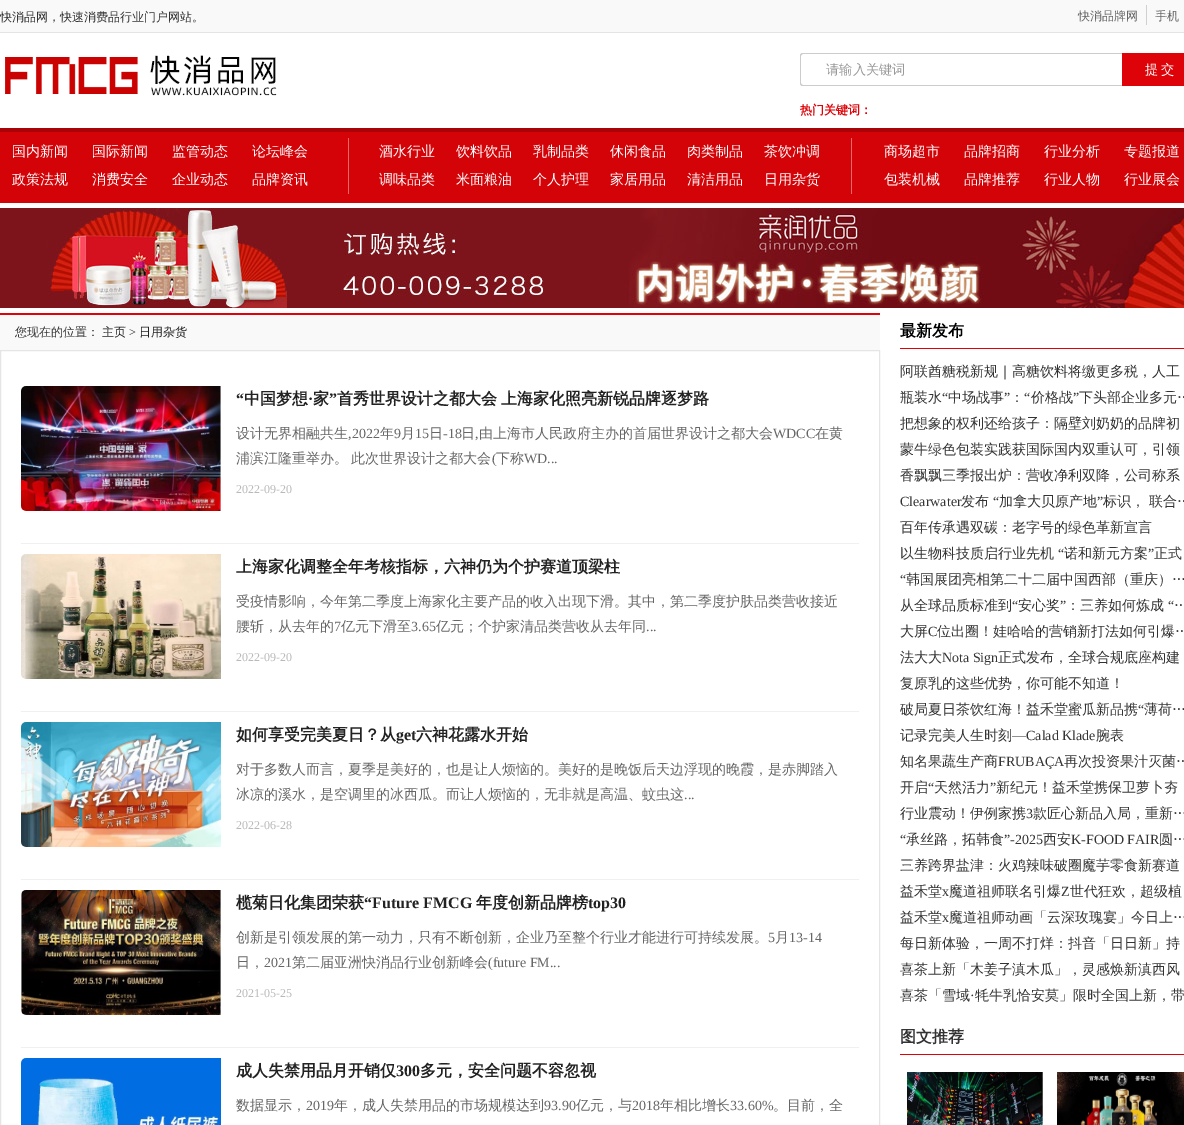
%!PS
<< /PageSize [1184 1125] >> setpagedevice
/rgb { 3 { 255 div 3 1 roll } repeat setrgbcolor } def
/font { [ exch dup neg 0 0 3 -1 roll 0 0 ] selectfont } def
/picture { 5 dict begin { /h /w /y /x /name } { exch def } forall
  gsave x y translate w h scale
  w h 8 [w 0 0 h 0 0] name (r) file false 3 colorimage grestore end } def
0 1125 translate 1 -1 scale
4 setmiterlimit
255 255 255 rgb
0 0 1184 1125 rectfill
[
  [0 0 1184 32 249 249 249]
  [0 32 1184 1 228 228 228]
  [1146 5 1 20 208 208 208]
] { aload pop rgb rectfill } forall
(img/1.rgb) 5 55 272 41 picture
204 204 204 rgb
803 53 moveto 1122 53 lineto 1122 86 lineto 803 86 lineto 801 86 800 85 800 83 curveto 800 56 lineto 800 54 801 53 803 53 curveto closepath 803 54 moveto 1122 54 lineto 1122 85 lineto 803 85 lineto 802 85 801 84 801 83 curveto 801 56 lineto 801 55 802 54 803 54 curveto closepath eofill
222 3 8 rgb
1122 53 62 33 rectfill
(img/2.rgb) 0 128 1184 75 picture
229 104 107 rgb
348 138 1 56 rectfill
851 138 1 56 rectfill
(img/3.rgb) 0 208 1184 100 picture
249 249 249 rgb
0 315 880 35 rectfill
222 3 8 rgb
0 313 880 2 rectfill
229 229 229 rgb
0.5 350.5 879 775 rectstroke
240 240 240 rgb
21 543 838 1 rectfill
(img/4.rgb) 21 386 200 125 picture
21 711 838 1 rectfill
(img/5.rgb) 21 554 200 125 picture
21 879 838 1 rectfill
(img/6.rgb) 21 722 200 125 picture
21 1047 838 1 rectfill
(img/7.rgb) 21 890 200 125 picture
(img/8.rgb) 21 1058 200 67 picture
222 3 8 rgb
900 348 284 1 rectfill
900 1054 284 1 rectfill
(img/9.rgb) 907 1072 136 53 picture
(img/10.rgb) 1057 1072 127 53 picture
/WenQuanYiZenHei-Medium 12 font
51 51 51 rgb
0 21 moveto (快消品网，快速消费品行业门户网站。) show
102 102 102 rgb
1078 20 moveto (快消品牌网) show
1155 20 moveto (手机) show
/WenQuanYiZenHei-Medium 13.25 font
153 153 153 rgb
826 74 moveto (请输入关键词) show
255 255 255 rgb
1145 74 moveto -1 0 32 (提 交) widthshow
/WenQuanYiZenHei-Bold 12 font
222 3 8 rgb
800 114 moveto (热门关键词：) show
/WenQuanYiZenHei-Medium 14 font
255 255 255 rgb
[
  [(国内新闻) 12 156]
  [(国际新闻) 92 156]
  [(监管动态) 172 156]
  [(论坛峰会) 252 156]
  [(政策法规) 12 184]
  [(消费安全) 92 184]
  [(企业动态) 172 184]
  [(品牌资讯) 252 184]
  [(酒水行业) 379 156]
  [(饮料饮品) 456 156]
  [(乳制品类) 533 156]
  [(休闲食品) 610 156]
  [(肉类制品) 687 156]
  [(茶饮冲调) 764 156]
  [(调味品类) 379 184]
  [(米面粮油) 456 184]
  [(个人护理) 533 184]
  [(家居用品) 610 184]
  [(清洁用品) 687 184]
  [(日用杂货) 764 184]
  [(商场超市) 884 156]
  [(品牌招商) 964 156]
  [(行业分析) 1044 156]
  [(专题报道) 1124 156]
  [(包装机械) 884 184]
  [(品牌推荐) 964 184]
  [(行业人物) 1044 184]
  [(行业展会) 1124 184]
] { aload pop moveto show } forall
/WenQuanYiZenHei-Medium 12 font
51 51 51 rgb
15 336 moveto (您现在的位置：) show
34 34 34 rgb
102 336 moveto (主页) show
/LiberationSerif-Regular 12 font
51 51 51 rgb
129 336 moveto (>) show
/WenQuanYiZenHei-Medium 12 font
34 34 34 rgb
139 336 moveto (日用杂货) show
/LiberationSerif-Bold 16 font
236 404 moveto (“) show
/WenQuanYiZenHei-Bold 16 font
244 404 moveto (中国梦想) show
/LiberationSerif-Bold 16 font
308 404 moveto (·) show
/WenQuanYiZenHei-Bold 16 font
313 404 moveto (家) show
/LiberationSerif-Bold 16 font
329 404 moveto (”) show
/WenQuanYiZenHei-Bold 16 font
337 404 moveto -1 0 32 (首秀世界设计之都大会 上海家化照亮新锐品牌逐梦路) widthshow
/WenQuanYiZenHei-Medium 14 font
102 102 102 rgb
236 438 moveto (设计无界相融共生) show
/LiberationSerif-Regular 14 font
348 438 moveto (,2022) show
/WenQuanYiZenHei-Medium 14 font
380 438 moveto (年) show
/LiberationSerif-Regular 14 font
394 438 moveto (9) show
/WenQuanYiZenHei-Medium 14 font
401 438 moveto (月) show
/LiberationSerif-Regular 14 font
415 438 moveto (15) show
/WenQuanYiZenHei-Medium 14 font
429 438 moveto (日) show
/LiberationSerif-Regular 14 font
443 438 moveto (-18) show
/WenQuanYiZenHei-Medium 14 font
461 438 moveto (日) show
/LiberationSerif-Regular 14 font
475 438 moveto (,) show
/WenQuanYiZenHei-Medium 14 font
479 438 moveto (由上海市人民政府主办的首届世界设计之都大会) show
/LiberationSerif-Regular 14 font
773 438 moveto (WDCC) show
/WenQuanYiZenHei-Medium 14 font
815 438 moveto (在黄) show
236 463 moveto -1 0 32 (浦滨江隆重举办。 此次世界设计之都大会) widthshow
/LiberationSerif-Regular 14 font
492 463 moveto (\() show
/WenQuanYiZenHei-Medium 14 font
496 463 moveto (下称) show
/LiberationSerif-Regular 14 font
524 463 moveto (WD...) show
/LiberationSerif-Regular 12 font
185 185 185 rgb
236 493 moveto (2022-09-20) show
/WenQuanYiZenHei-Bold 16 font
34 34 34 rgb
236 572 moveto (上海家化调整全年考核指标，六神仍为个护赛道顶梁柱) show
/WenQuanYiZenHei-Medium 14 font
102 102 102 rgb
236 606 moveto (受疫情影响，今年第二季度上海家化主要产品的收入出现下滑。其中，第二季度护肤品类营收接近) show
236 631 moveto (腰斩，从去年的) show
/LiberationSerif-Regular 14 font
334 631 moveto (7) show
/WenQuanYiZenHei-Medium 14 font
341 631 moveto (亿元下滑至) show
/LiberationSerif-Regular 14 font
411 631 moveto (3.65) show
/WenQuanYiZenHei-Medium 14 font
436 631 moveto (亿元；个护家清品类营收从去年同) show
/LiberationSerif-Regular 14 font
646 631 moveto (...) show
/LiberationSerif-Regular 12 font
185 185 185 rgb
236 661 moveto (2022-09-20) show
/WenQuanYiZenHei-Bold 16 font
34 34 34 rgb
236 740 moveto (如何享受完美夏日？从) show
/LiberationSerif-Bold 16 font
396 740 moveto (get) show
/WenQuanYiZenHei-Bold 16 font
416 740 moveto (六神花露水开始) show
/WenQuanYiZenHei-Medium 14 font
102 102 102 rgb
236 774 moveto (对于多数人而言，夏季是美好的，也是让人烦恼的。美好的是晚饭后天边浮现的晚霞，是赤脚踏入) show
236 799 moveto (冰凉的溪水，是空调里的冰西瓜。而让人烦恼的，无非就是高温、蚊虫这) show
/LiberationSerif-Regular 14 font
684 799 moveto (...) show
/LiberationSerif-Regular 12 font
185 185 185 rgb
236 829 moveto (2022-06-28) show
/WenQuanYiZenHei-Bold 16 font
34 34 34 rgb
236 908 moveto (榄菊日化集团荣获) show
/LiberationSerif-Bold 16 font
364 908 moveto (“Future FMCG) show
/WenQuanYiZenHei-Bold 16 font
476 908 moveto (年度创新品牌榜) show
/LiberationSerif-Bold 16 font
588 908 moveto (top30) show
/WenQuanYiZenHei-Medium 14 font
102 102 102 rgb
236 942 moveto (创新是引领发展的第一动力，只有不断创新，企业乃至整个行业才能进行可持续发展。) show
/LiberationSerif-Regular 14 font
768 942 moveto (5) show
/WenQuanYiZenHei-Medium 14 font
775 942 moveto (月) show
/LiberationSerif-Regular 14 font
789 942 moveto (13-14) show
/WenQuanYiZenHei-Medium 14 font
236 967 moveto (日，) show
/LiberationSerif-Regular 14 font
264 967 moveto (2021) show
/WenQuanYiZenHei-Medium 14 font
292 967 moveto (第二届亚洲快消品行业创新峰会) show
/LiberationSerif-Regular 14 font
488 967 moveto (\(future FM...) show
/LiberationSerif-Regular 12 font
185 185 185 rgb
236 997 moveto (2021-05-25) show
/WenQuanYiZenHei-Bold 16 font
34 34 34 rgb
236 1076 moveto (成人失禁用品月开销仅) show
/LiberationSerif-Bold 16 font
396 1076 moveto (300) show
/WenQuanYiZenHei-Bold 16 font
420 1076 moveto (多元，安全问题不容忽视) show
/WenQuanYiZenHei-Medium 14 font
102 102 102 rgb
236 1110 moveto (数据显示，) show
/LiberationSerif-Regular 14 font
306 1110 moveto (2019) show
/WenQuanYiZenHei-Medium 14 font
334 1110 moveto (年，成人失禁用品的市场规模达到) show
/LiberationSerif-Regular 14 font
544 1110 moveto (93.90) show
/WenQuanYiZenHei-Medium 14 font
576 1110 moveto (亿元，与) show
/LiberationSerif-Regular 14 font
632 1110 moveto (2018) show
/WenQuanYiZenHei-Medium 14 font
660 1110 moveto (年相比增长) show
/LiberationSerif-Regular 14 font
730 1110 moveto (33.60%) show
/WenQuanYiZenHei-Medium 14 font
773 1110 moveto (。目前，全) show
/WenQuanYiZenHei-Bold 16 font
0 0 0 rgb
900 336 moveto (最新发布) show
/WenQuanYiZenHei-Medium 14 font
51 51 51 rgb
900 376 moveto (阿联酋糖税新规｜高糖饮料将缴更多税，人工) show
900 402 moveto (瓶装水) show
/LiberationSerif-Regular 14 font
942 402 moveto (“) show
/WenQuanYiZenHei-Medium 14 font
948 402 moveto (中场战事) show
/LiberationSerif-Regular 14 font
1004 402 moveto (”) show
/WenQuanYiZenHei-Medium 14 font
1010 402 moveto (：) show
/LiberationSerif-Regular 14 font
1024 402 moveto (“) show
/WenQuanYiZenHei-Medium 14 font
1031 402 moveto (价格战) show
/LiberationSerif-Regular 14 font
1073 402 moveto (”) show
/WenQuanYiZenHei-Medium 14 font
[
  [(下头部企业多元…) 1079 402]
  [(把想象的权利还给孩子：隔壁刘奶奶的品牌初) 900 428]
  [(蒙牛绿色包装实践获国际国内双重认可，引领) 900 454]
  [(香飘飘三季报出炉：营收净利双降，公司称系) 900 480]
] { aload pop moveto show } forall
/LiberationSerif-Regular 14 font
900 506 moveto (Clearwater) show
/WenQuanYiZenHei-Medium 14 font
961 506 moveto (发布) show
/LiberationSerif-Regular 14 font
993 506 moveto (“) show
/WenQuanYiZenHei-Medium 14 font
999 506 moveto (加拿大贝原产地) show
/LiberationSerif-Regular 14 font
1097 506 moveto (”) show
/WenQuanYiZenHei-Medium 14 font
[
  [(标识， 联合…) 1103 506]
  [(百年传承遇双碳：老字号的绿色革新宣言) 900 532]
  [(以生物科技质启行业先机) 900 558]
] { aload pop moveto show } forall
/LiberationSerif-Regular 14 font
1058 558 moveto (“) show
/WenQuanYiZenHei-Medium 14 font
1064 558 moveto (诺和新元方案) show
/LiberationSerif-Regular 14 font
1148 558 moveto (”) show
/WenQuanYiZenHei-Medium 14 font
1154 558 moveto (正式) show
/LiberationSerif-Regular 14 font
900 584 moveto (“) show
/WenQuanYiZenHei-Medium 14 font
906 584 moveto (韩国展团亮相第二十二届中国西部（重庆）…) show
900 610 moveto (从全球品质标准到) show
/LiberationSerif-Regular 14 font
1012 610 moveto (“) show
/WenQuanYiZenHei-Medium 14 font
1018 610 moveto (安心奖) show
/LiberationSerif-Regular 14 font
1060 610 moveto (”) show
/WenQuanYiZenHei-Medium 14 font
1066 610 moveto (：三养如何炼成) show
/LiberationSerif-Regular 14 font
1168 610 moveto (“) show
/WenQuanYiZenHei-Medium 14 font
1174 610 moveto (…) show
900 636 moveto (大屏) show
/LiberationSerif-Regular 14 font
928 636 moveto (C) show
/WenQuanYiZenHei-Medium 14 font
937 636 moveto (位出圈！娃哈哈的营销新打法如何引爆…) show
900 662 moveto (法大大) show
/LiberationSerif-Regular 14 font
942 662 moveto (Nota Sign) show
/WenQuanYiZenHei-Medium 14 font
[
  [(正式发布，全球合规底座构建) 998 662]
  [(复原乳的这些优势，你可能不知道！) 900 688]
  [(破局夏日茶饮红海！益禾堂蜜瓜新品携) 900 714]
] { aload pop moveto show } forall
/LiberationSerif-Regular 14 font
1138 714 moveto (“) show
/WenQuanYiZenHei-Medium 14 font
1144 714 moveto (薄荷…) show
900 740 moveto (记录完美人生时刻) show
/LiberationSerif-Regular 14 font
1012 740 moveto (—Calad Klade) show
/WenQuanYiZenHei-Medium 14 font
1096 740 moveto (腕表) show
900 766 moveto (知名果蔬生产商) show
/LiberationSerif-Regular 14 font
998 766 moveto (FRUBAÇA) show
/WenQuanYiZenHei-Medium 14 font
1064 766 moveto (再次投资果汁灭菌…) show
900 792 moveto (开启) show
/LiberationSerif-Regular 14 font
928 792 moveto (“) show
/WenQuanYiZenHei-Medium 14 font
934 792 moveto (天然活力) show
/LiberationSerif-Regular 14 font
990 792 moveto (”) show
/WenQuanYiZenHei-Medium 14 font
996 792 moveto (新纪元！益禾堂携保卫萝卜夯) show
900 818 moveto (行业震动！伊例家携) show
/LiberationSerif-Regular 14 font
1026 818 moveto (3) show
/WenQuanYiZenHei-Medium 14 font
1033 818 moveto (款匠心新品入局，重新…) show
/LiberationSerif-Regular 14 font
900 844 moveto (“) show
/WenQuanYiZenHei-Medium 14 font
906 844 moveto (承丝路，拓韩食) show
/LiberationSerif-Regular 14 font
1004 844 moveto (”-2025) show
/WenQuanYiZenHei-Medium 14 font
1043 844 moveto (西安) show
/LiberationSerif-Regular 14 font
1071 844 moveto (K-FOOD FAIR) show
/WenQuanYiZenHei-Medium 14 font
[
  [(圆…) 1159 844]
  [(三养跨界盐津：火鸡辣味破圈魔芋零食新赛道) 900 870]
  [(益禾堂) 900 896]
] { aload pop moveto show } forall
/LiberationSerif-Regular 14 font
942 896 moveto (x) show
/WenQuanYiZenHei-Medium 14 font
949 896 moveto (魔道祖师联名引爆) show
/LiberationSerif-Regular 14 font
1061 896 moveto (Z) show
/WenQuanYiZenHei-Medium 14 font
1070 896 moveto (世代狂欢，超级植) show
900 922 moveto (益禾堂) show
/LiberationSerif-Regular 14 font
942 922 moveto (x) show
/WenQuanYiZenHei-Medium 14 font
[
  [(魔道祖师动画「云深玫瑰宴」今日上…) 949 922]
  [(每日新体验，一周不打烊：抖音「日日新」持) 900 948]
  [(喜茶上新「木姜子滇木瓜」，灵感焕新滇西风) 900 974]
  [(喜茶「雪域) 900 1000]
] { aload pop moveto show } forall
/LiberationSerif-Regular 14 font
970 1000 moveto (·) show
/WenQuanYiZenHei-Medium 14 font
975 1000 moveto (牦牛乳恰安莫」限时全国上新，带) show
/WenQuanYiZenHei-Bold 16 font
900 1042 moveto (图文推荐) show
showpage
